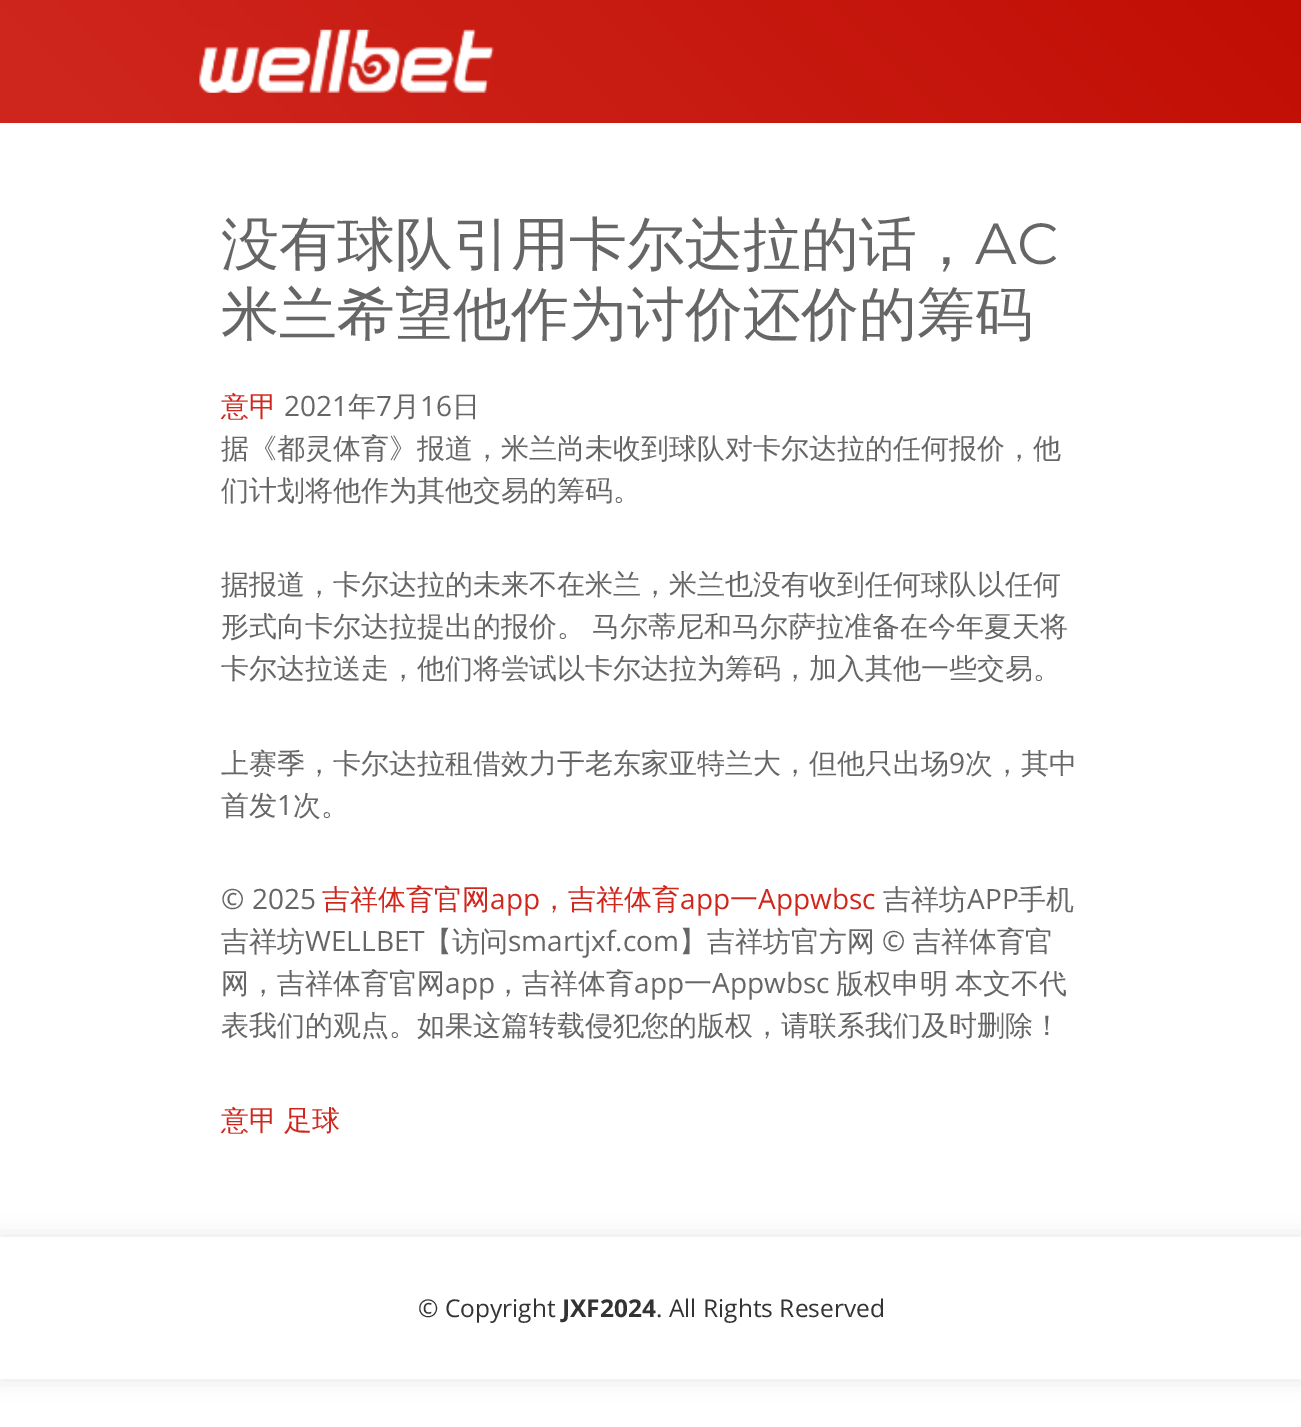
%!PS
<< /PageSize [1301 1427] /PageUsesTransparency true >> setpagedevice
/rgb { 3 { 255 div 3 1 roll } repeat setrgbcolor } def
/font { [ exch dup neg 0 0 3 -1 roll 0 0 ] selectfont } def
/alpha { dup .setfillconstantalpha .setstrokeconstantalpha } def
/roundrect { 5 dict begin { /r /h /w /y /x } { exch def } forall
  x r add y moveto x w add y 2 copy h add r arct x w add y h add x 1 index r arct
  x y h add x y r arct x y 2 copy exch w add exch r arct closepath end } def
/shadow { 12 dict begin { /a /b /q /h /w /y /x } { exch def } forall gsave /was 0 def
  9 -2 -9 { dup b mul 4 div /e exch def 1 sub .425 mul 2.718 exch exp 1 add a .99 .min exch div /now exch def
    1 1 now sub 1 was sub div sub alpha /was now def
    w h .min e 2 mul add 0 gt { x e sub y e sub w e 2 mul add h e 2 mul add
      q e add b .6 mul add w h .min 2 div e add .min 0 .max roundrect fill } if } for grestore end } def
/picture { 5 dict begin { /h /w /y /x /name } { exch def } forall
  gsave x y translate w h scale
  w h 8 [w 0 0 h 0 0] name (r) file false 3 colorimage grestore end } def
0 .pushpdf14devicefilter
0 1427 translate 1 -1 scale
4 setmiterlimit
255 255 255 rgb
0 0 1301 1427 rectfill
gsave 0 0 moveto 1301 0 lineto 1301 123 lineto 0 123 lineto closepath clip newpath
<< /ShadingType 2 /ColorSpace /DeviceRGB /Coords [295 417 1007 -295] /Extend [true true] /Function << /FunctionType 2 /Domain [0 1] /C0 [0.812 0.153 0.118] /C1 [0.757 0.055 0.016] /N 1 >> >> shfill grestore
(img/1.rgb) 199 29 295 64 picture
0 0 0 rgb
0 1237 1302 142 0 10.5 0.1 shadow
255 255 255 rgb
0 1237 1301 142 rectfill
/WenQuanYiZenHei-Medium 58 font
102 102 102 rgb
221 264 moveto (没有球队引用卡尔达拉的话，) show
/Montserrat-Regular 58 font
975 264 moveto (AC) show
/WenQuanYiZenHei-Medium 58 font
221 334 moveto (米兰希望他作为讨价还价的筹码) show
/WenQuanYiZenHei-Medium 28 font
207 39 30 rgb
221 416 moveto (意甲) show
/OpenSans-Regular 28 font
102 102 102 rgb
284 416 moveto (2021) show
/WenQuanYiZenHei-Medium 28 font
348 416 moveto (年) show
/OpenSans-Regular 28 font
376 416 moveto (7) show
/WenQuanYiZenHei-Medium 28 font
392 416 moveto (月) show
/OpenSans-Regular 28 font
420 416 moveto (16) show
/WenQuanYiZenHei-Medium 28 font
[
  [(日) 452 416]
  [(据《都灵体育》报道，米兰尚未收到球队对卡尔达拉的任何报价，他) 221 458]
  [(们计划将他作为其他交易的筹码。) 221 500]
  [(据报道，卡尔达拉的未来不在米兰，米兰也没有收到任何球队以任何) 221 594]
] { aload pop moveto show } forall
221 636 moveto -1 0 32 (形式向卡尔达拉提出的报价。 马尔蒂尼和马尔萨拉准备在今年夏天将) widthshow
221 678 moveto (卡尔达拉送走，他们将尝试以卡尔达拉为筹码，加入其他一些交易。) show
221 773 moveto (上赛季，卡尔达拉租借效力于老东家亚特兰大，但他只出场) show
/OpenSans-Regular 28 font
949 773 moveto (9) show
/WenQuanYiZenHei-Medium 28 font
965 773 moveto (次，其中) show
221 815 moveto (首发) show
/OpenSans-Regular 28 font
277 815 moveto (1) show
/WenQuanYiZenHei-Medium 28 font
293 815 moveto (次。) show
/OpenSans-Regular 28 font
221 909 moveto (© 2025) show
/WenQuanYiZenHei-Medium 28 font
207 39 30 rgb
322 909 moveto (吉祥体育官网) show
/OpenSans-Regular 28 font
490 909 moveto (app) show
/WenQuanYiZenHei-Medium 28 font
540 909 moveto (，吉祥体育) show
/OpenSans-Regular 28 font
680 909 moveto (app) show
/WenQuanYiZenHei-Medium 28 font
730 909 moveto (一) show
/OpenSans-Regular 28 font
758 909 moveto (Appwbsc) show
/WenQuanYiZenHei-Medium 28 font
102 102 102 rgb
883 909 moveto (吉祥坊) show
/OpenSans-Regular 28 font
967 909 moveto (APP) show
/WenQuanYiZenHei-Medium 28 font
1018 909 moveto (手机) show
221 951 moveto (吉祥坊) show
/OpenSans-Regular 28 font
305 951 moveto (WELLBET) show
/WenQuanYiZenHei-Medium 28 font
424 951 moveto (【访问) show
/OpenSans-Regular 28 font
508 951 moveto (smartjxf.com) show
/WenQuanYiZenHei-Medium 28 font
679 951 moveto (】吉祥坊官方网) show
/OpenSans-Regular 28 font
882 951 moveto (©) show
/WenQuanYiZenHei-Medium 28 font
913 951 moveto (吉祥体育官) show
221 993 moveto (网，吉祥体育官网) show
/OpenSans-Regular 28 font
445 993 moveto (app) show
/WenQuanYiZenHei-Medium 28 font
494 993 moveto (，吉祥体育) show
/OpenSans-Regular 28 font
634 993 moveto (app) show
/WenQuanYiZenHei-Medium 28 font
684 993 moveto (一) show
/OpenSans-Regular 28 font
712 993 moveto (Appwbsc) show
/WenQuanYiZenHei-Medium 28 font
836 993 moveto -1 0 32 (版权申明 本文不代) widthshow
221 1035 moveto (表我们的观点。如果这篇转载侵犯您的版权，请联系我们及时删除！) show
207 39 30 rgb
221 1130 moveto (意甲) show
284 1130 moveto (足球) show
/OpenSans-Regular 24.5 font
51 51 51 rgb
418 1317 moveto (© Copyright) show
/OpenSans-Bold 24.5 font
562 1317 moveto (JXF2024) show
/OpenSans-Regular 24.5 font
656 1317 moveto (. All Rights Reserved) show
.poppdf14devicefilter showpage
